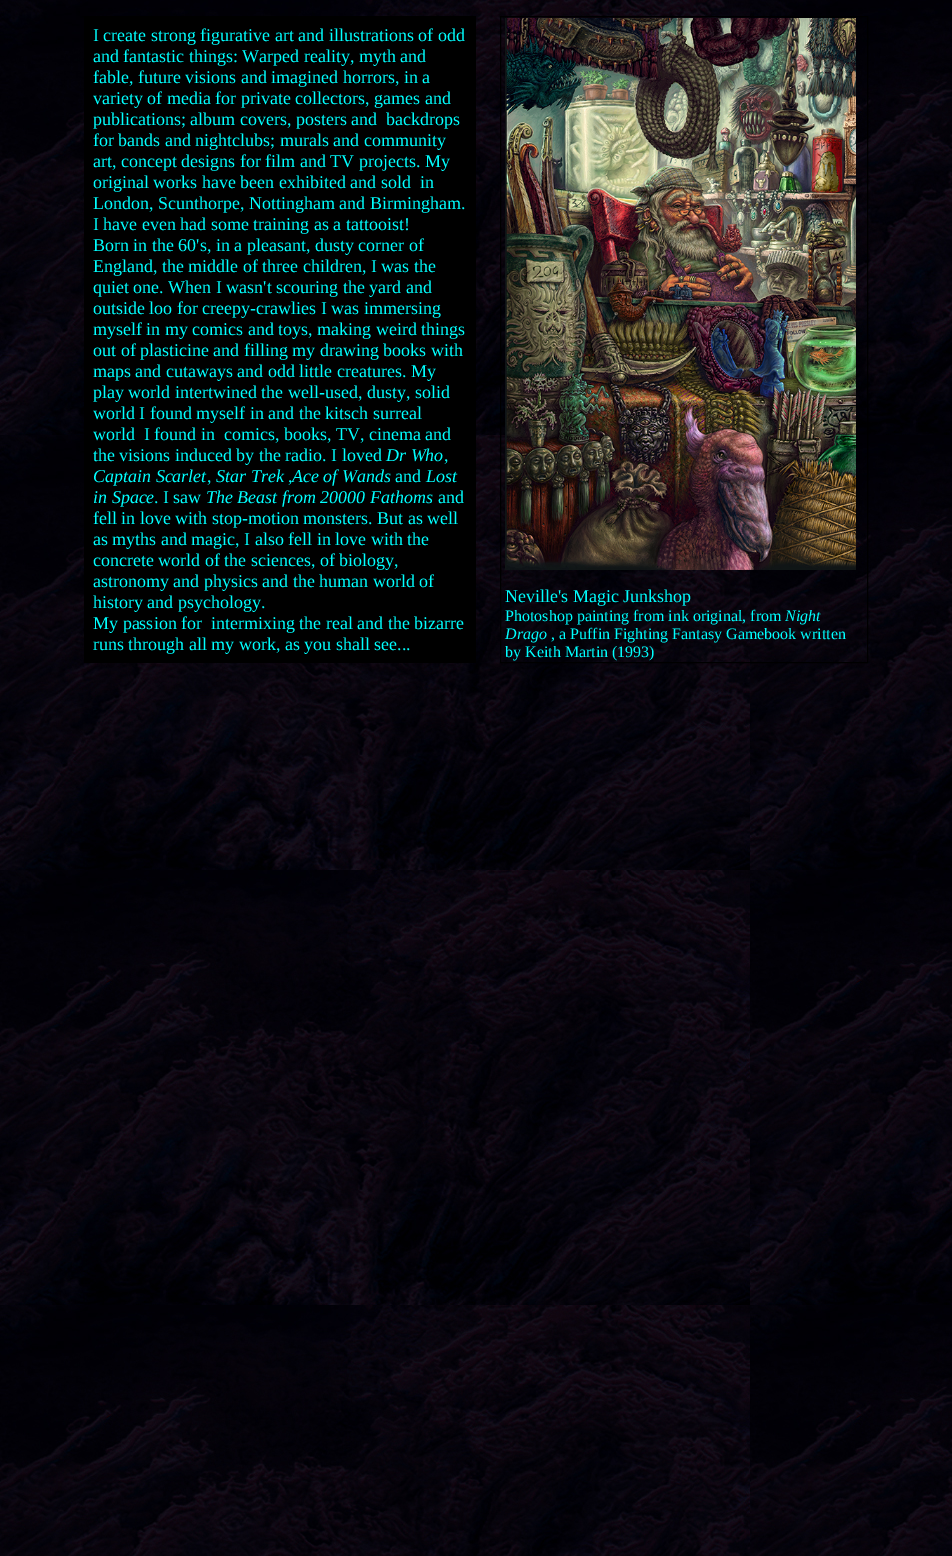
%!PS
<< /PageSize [952 1556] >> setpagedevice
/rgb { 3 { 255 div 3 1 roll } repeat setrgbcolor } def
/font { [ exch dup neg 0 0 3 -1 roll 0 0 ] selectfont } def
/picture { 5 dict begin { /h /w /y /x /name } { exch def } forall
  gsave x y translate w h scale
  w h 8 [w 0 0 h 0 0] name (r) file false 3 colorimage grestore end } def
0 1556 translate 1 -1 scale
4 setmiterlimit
255 255 255 rgb
0 0 952 1556 rectfill
(img/1.rgb) 0 0 952 1556 picture
0 0 0 rgb
84 16 392 647 rectfill
500.5 16.5 367 646 rectstroke
(img/2.rgb) 505 18 351 552 picture
/LiberationSerif-Regular 18 font
0 255 255 rgb
[
  [(I create strong figurative art and illustrations of odd) 93 41]
  [(and fantastic things: Warped reality, myth and) 93 62]
  [(fable, future visions and imagined horrors, in a) 93 83]
  [(variety of media for private collectors, games and) 93 104]
  [(publications; album covers, posters and  backdrops) 93 125]
  [(for bands and nightclubs; murals and community) 93 146]
  [(art, concept designs for film and TV projects. My) 93 167]
  [(original works have been exhibited and sold  in) 93 188]
  [(London, Scunthorpe, Nottingham and Birmingham.) 93 209]
  [(I have even had some training as a tattooist!) 93 230]
  [(Born in the 60's, in a pleasant, dusty corner of) 93 251]
  [(England, the middle of three children, I was the) 93 272]
  [(quiet one. When I wasn't scouring the yard and) 93 293]
  [(outside loo for creepy-crawlies I was immersing) 93 314]
  [(myself in my comics and toys, making weird things) 93 335]
  [(out of plasticine and filling my drawing books with) 93 356]
  [(maps and cutaways and odd little creatures. My) 93 377]
  [(play world intertwined the well-used, dusty, solid) 93 398]
  [(world I found myself in and the kitsch surreal) 93 419]
  [(world  I found in  comics, books, TV, cinema and) 93 440]
  [(the visions induced by the radio. I loved) 93 461]
] { aload pop moveto show } forall
/LiberationSerif-Italic 18 font
386 461 moveto (Dr Who) show
/LiberationSerif-Regular 18 font
444 461 moveto (,) show
/LiberationSerif-Italic 18 font
93 482 moveto (Captain Scarlet) show
/LiberationSerif-Regular 18 font
207 482 moveto (,) show
/LiberationSerif-Italic 18 font
216 482 moveto (Star Trek) show
/LiberationSerif-Regular 18 font
288 482 moveto (,) show
/LiberationSerif-Italic 18 font
292 482 moveto (Ace of Wands) show
/LiberationSerif-Regular 18 font
395 482 moveto (and) show
/LiberationSerif-Italic 18 font
426 482 moveto (Lost) show
93 503 moveto (in Space) show
/LiberationSerif-Regular 18 font
154 503 moveto (. I saw) show
/LiberationSerif-Italic 18 font
206 503 moveto (The Beast from 20000 Fathoms) show
/LiberationSerif-Regular 18 font
[
  [(and) 438 503]
  [(fell in love with stop-motion monsters. But as well) 93 524]
  [(as myths and magic, I also fell in love with the) 93 545]
  [(concrete world of the sciences, of biology,) 93 566]
  [(astronomy and physics and the human world of) 93 587]
  [(history and psychology.) 93 608]
  [(My passion for  intermixing the real and the bizarre) 93 629]
  [(runs through all my work, as you shall see...) 93 650]
  [(Neville's Magic Junkshop) 505 602]
] { aload pop moveto show } forall
/LiberationSerif-Regular 16 font
505 621 moveto (Photoshop painting from ink original, from) show
/LiberationSerif-Italic 16 font
785 621 moveto (Night) show
505 639 moveto (Drago) show
/LiberationSerif-Regular 16 font
551 639 moveto (, a Puffin Fighting Fantasy Gamebook written) show
505 657 moveto (by Keith Martin \(1993\)) show
showpage
